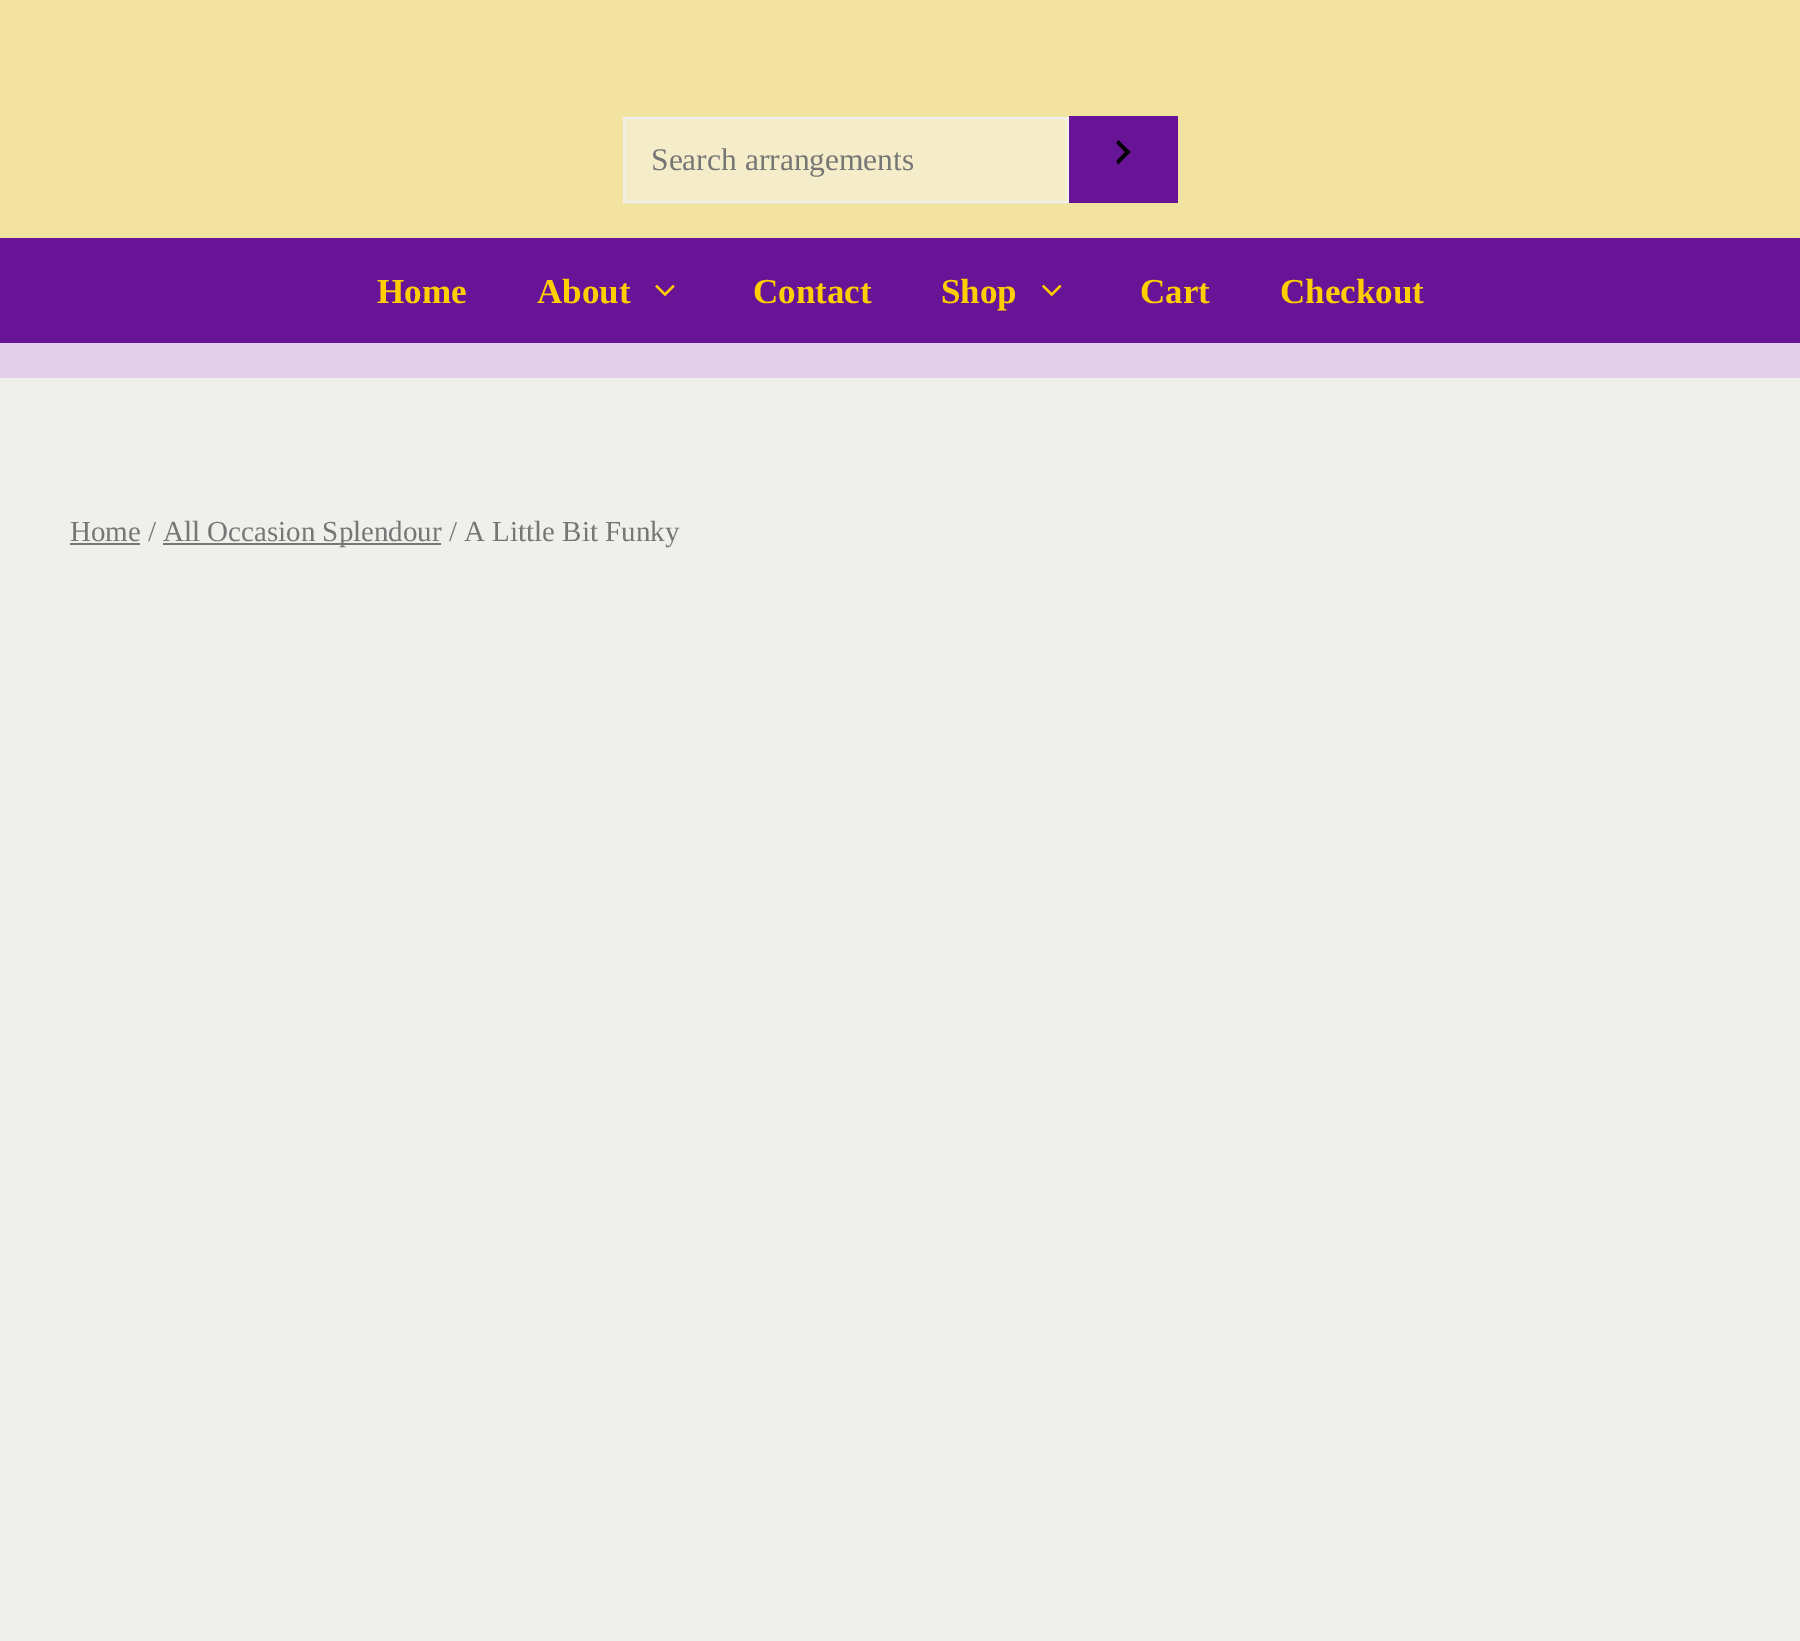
%!PS
<< /PageSize [1800 1641] >> setpagedevice
/rgb { 3 { 255 div 3 1 roll } repeat setrgbcolor } def
/font { [ exch dup neg 0 0 3 -1 roll 0 0 ] selectfont } def
/picture { 5 dict begin { /h /w /y /x /name } { exch def } forall
  gsave x y translate w h scale
  w h 8 [w 0 0 h 0 0] name (r) file false 3 colorimage grestore end } def
0 1641 translate 1 -1 scale
4 setmiterlimit
226 209 233 rgb
0 0 1800 1641 rectfill
242 227 160 rgb
0 0 1800 238 rectfill
245 237 201 rgb
624 118 moveto 1068 118 lineto 1068 202 lineto 624 202 lineto closepath gsave fill grestore
240 240 240 rgb
2 setlinewidth
stroke
104 20 151 rgb
1069 116 109 87 rectfill
0 0 0 rgb
1116.5 161 moveto 1125 152 lineto 1116.5 143.5 lineto 1118 140 lineto 1130.5 152 lineto 1118 164.5 lineto closepath fill
104 20 151 rgb
0 238 1800 105 rectfill
(img/1.rgb) 655 284 20 13 picture
(img/2.rgb) 1042 284 20 13 picture
[
  [0 378 1800 1263 239 239 235]
  [70 543 70 2 118 118 118]
  [163 543 278 2 118 118 118]
] { aload pop rgb rectfill } forall
/LiberationSerif-Regular 31.5 font
651 170 moveto (Search arrangements) show
/LiberationSerif-Bold 35 font
254 206 0 rgb
[
  [(Home) 377 303]
  [(About) 537 303]
  [(Contact) 753 303]
  [(Shop) 941 303]
  [(Cart) 1140 303]
  [(Checkout) 1280 303]
] { aload pop moveto show } forall
/LiberationSerif-Regular 29 font
118 118 118 rgb
70 541 moveto (Home /) show
163 541 moveto (All Occasion Splendour / A Little Bit Funky) show
showpage
